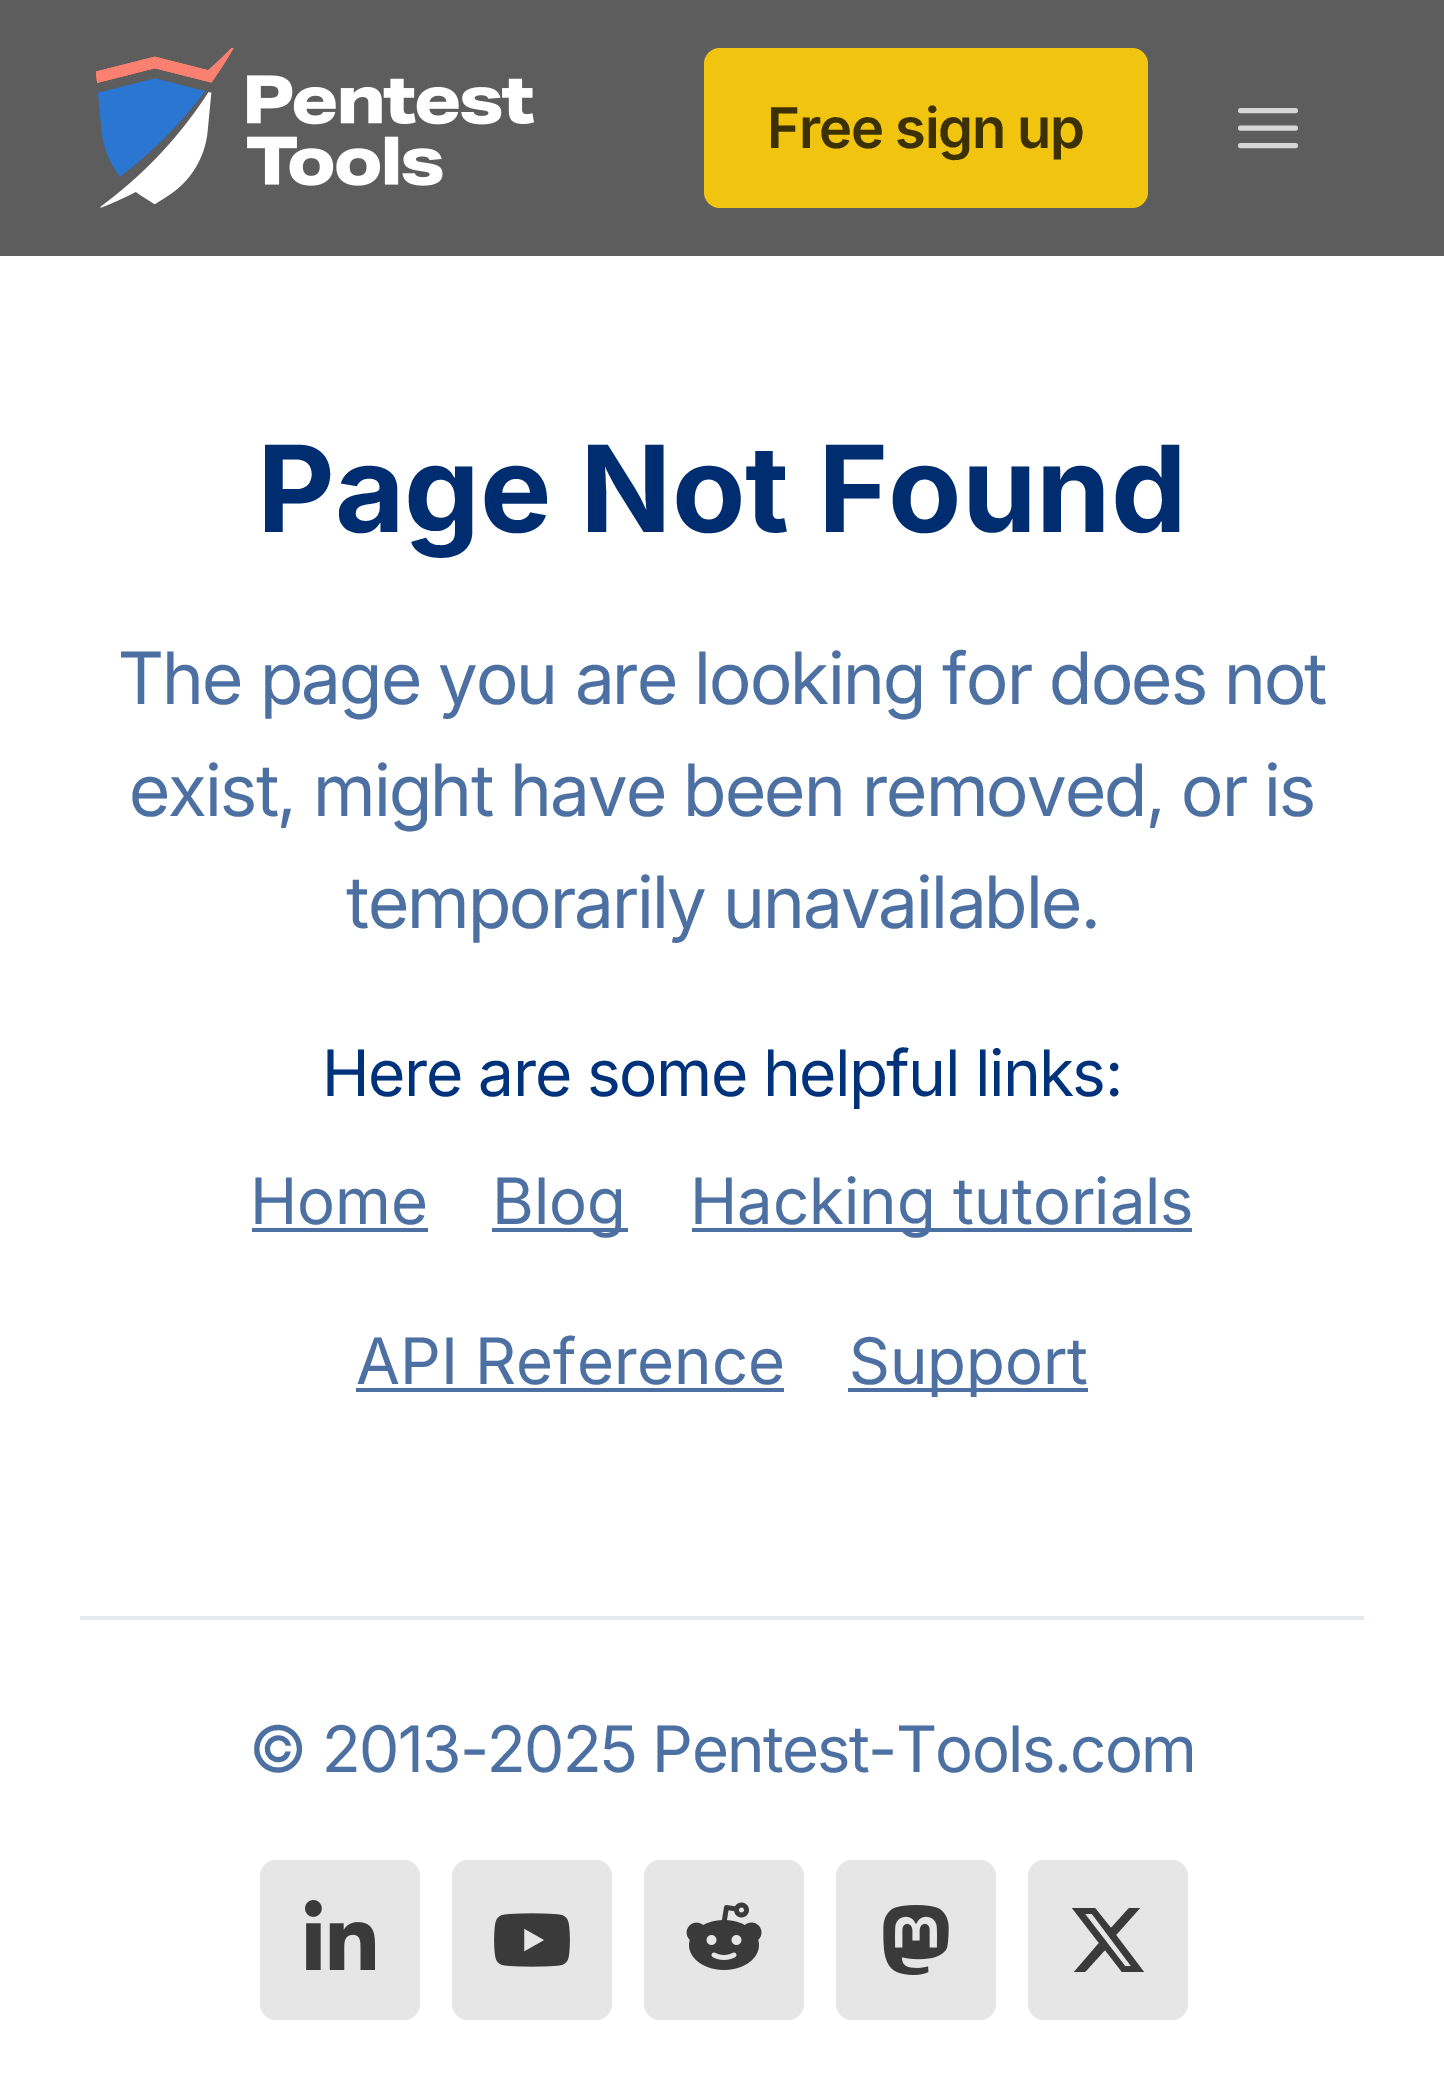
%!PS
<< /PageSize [1444 2093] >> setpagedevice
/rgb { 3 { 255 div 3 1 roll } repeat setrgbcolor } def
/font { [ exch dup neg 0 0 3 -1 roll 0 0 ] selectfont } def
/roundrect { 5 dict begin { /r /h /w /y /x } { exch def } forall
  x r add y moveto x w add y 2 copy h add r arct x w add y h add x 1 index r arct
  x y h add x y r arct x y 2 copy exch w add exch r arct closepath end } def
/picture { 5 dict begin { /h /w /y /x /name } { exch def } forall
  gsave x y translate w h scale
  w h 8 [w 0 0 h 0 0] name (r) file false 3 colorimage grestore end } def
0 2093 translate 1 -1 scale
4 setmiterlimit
93 93 93 rgb
0 0 1444 2093 rectfill
(img/1.rgb) 96 48 438 160 picture
241 196 15 rgb
704 48 444 160 16 roundrect fill
215 215 215 rgb
5 setlinewidth
1 setlinecap
1 setlinejoin
1240.5 110.5 moveto 1295.5 110.5 lineto 1240.5 128 moveto 1295.5 128 lineto 1240.5 145.5 moveto 1295.5 145.5 lineto stroke
[
  [0 256 1444 1837 255 255 255]
  [252 1228 176 4 77 112 163]
  [492 1228 136 4 77 112 163]
  [692 1228 500 4 77 112 163]
  [356 1388 428 4 77 112 163]
  [848 1388 240 4 77 112 163]
  [80 1616 1284 4 230 235 242]
] { aload pop rgb rectfill } forall
230 230 230 rgb
260 1860 160 160 16 roundrect fill
(img/2.rgb) 305 1900 70 70 picture
452 1860 160 160 16 roundrect fill
(img/3.rgb) 494 1913 76 54 picture
644 1860 160 160 16 roundrect fill
(img/4.rgb) 686 1902 76 68 picture
836 1860 160 160 16 roundrect fill
(img/5.rgb) 883 1905 66 70 picture
1028 1860 160 160 16 roundrect fill
58 58 58 rgb
1129 1908 moveto 1140 1908 lineto 1116 1935 lineto 1144 1972 lineto 1122 1972 lineto 1105 1950 lineto 1085 1972 lineto 1074 1972 lineto 1099 1943 lineto 1072 1908 lineto 1095 1908 lineto 1111 1928 lineto closepath 1125 1966 moveto 1131 1966 lineto 1092 1914 lineto 1085 1914 lineto closepath fill
/Inter-SemiBold 56 font
60 49 4 rgb
767 148 moveto -1.4 0 (Free sign up) ashow
/Inter-Bold 120 font
0 45 112 rgb
257 532 moveto (Page Not Found) show
/Inter-Regular 72 font
77 112 163 rgb
118 704 moveto -1.8 0 (The page you are looking for does not) ashow
129 816 moveto -1.8 0 (exist, might have been removed, or is) ashow
346 928 moveto -1.8 0 (temporarily unavailable.) ashow
/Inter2-Regular 64 font
0 50 124 rgb
322 1096 moveto -1.6 0 (Here are some helpful links:) ashow
/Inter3-Regular 64 font
77 112 163 rgb
[
  [(Home) 250 1224]
  [(Blog) 492 1224]
  [(Hacking tutorials) 690 1224]
  [(API Reference) 356 1384]
  [(Support) 849 1384]
] { aload pop moveto show } forall
249 1772 moveto -1.6 0 (© 2013-2025 Pentest-Tools.com) ashow
showpage
